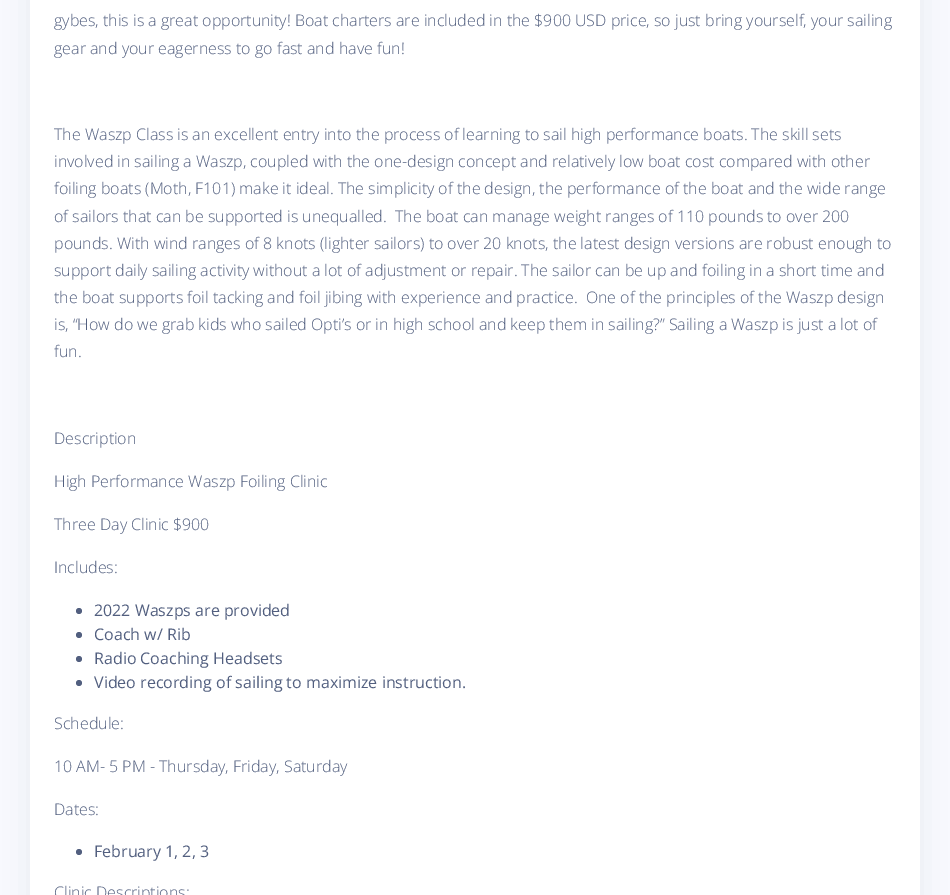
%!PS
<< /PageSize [950 895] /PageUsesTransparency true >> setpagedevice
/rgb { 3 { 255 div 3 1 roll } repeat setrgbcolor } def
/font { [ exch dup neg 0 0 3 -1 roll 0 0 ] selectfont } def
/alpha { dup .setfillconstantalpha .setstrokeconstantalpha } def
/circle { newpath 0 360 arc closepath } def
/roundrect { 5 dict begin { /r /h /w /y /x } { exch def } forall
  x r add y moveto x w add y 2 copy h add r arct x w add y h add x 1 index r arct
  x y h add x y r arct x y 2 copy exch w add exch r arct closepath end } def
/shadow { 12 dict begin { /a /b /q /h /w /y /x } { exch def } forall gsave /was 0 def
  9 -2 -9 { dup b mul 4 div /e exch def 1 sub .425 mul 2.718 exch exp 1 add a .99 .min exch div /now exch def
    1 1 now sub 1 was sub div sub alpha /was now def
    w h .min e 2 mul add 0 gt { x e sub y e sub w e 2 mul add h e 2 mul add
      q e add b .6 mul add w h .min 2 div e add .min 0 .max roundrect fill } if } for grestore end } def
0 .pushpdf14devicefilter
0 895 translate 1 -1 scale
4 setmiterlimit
248 249 254 rgb
0 0 950 895 rectfill
136 152 170 rgb
30 -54 890 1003 6 16 0.15 shadow
255 255 255 rgb
30 0 890 895 rectfill
82 95 127 rgb
79 611 3 circle fill
79 635 3 circle fill
79 659 3 circle fill
79 683 3 circle fill
79 852 3 circle fill
/OpenSans-Light 16 font
[
  [(gybes, this is a great opportunity! Boat charters are included in the $900 USD price, so just bring yourself, your sailing) 54 26]
  [(gear and your eagerness to go fast and have fun!) 54 54]
  [(The Waszp Class is an excellent entry into the process of learning to sail high performance boats. The skill sets) 54 140]
  [(involved in sailing a Waszp, coupled with the one-design concept and relatively low boat cost compared with other) 54 167]
  [(foiling boats \(Moth, F101\) make it ideal. The simplicity of the design, the performance of the boat and the wide range) 54 194]
  [(of sailors that can be supported is unequalled.  The boat can manage weight ranges of 110 pounds to over 200) 54 222]
  [(pounds. With wind ranges of 8 knots \(lighter sailors\) to over 20 knots, the latest design versions are robust enough to) 54 249]
  [(support daily sailing activity without a lot of adjustment or repair. The sailor can be up and foiling in a short time and) 54 276]
  [(the boat supports foil tacking and foil jibing with experience and practice.  One of the principles of the Waszp design) 54 303]
  [(is, “How do we grab kids who sailed Opti’s or in high school and keep them in sailing?” Sailing a Waszp is just a lot of) 54 330]
  [(fun.) 54 357]
  [(Description) 54 444]
  [(High Performance Waszp Foiling Clinic) 54 487]
  [(Three Day Clinic $900) 54 530]
  [(Includes:) 54 573]
] { aload pop moveto show } forall
/OpenSans-Regular 16 font
[
  [(2022 Waszps are provided) 94 616]
  [(Coach w/ Rib) 94 640]
  [(Radio Coaching Headsets) 94 664]
  [(Video recording of sailing to maximize instruction.) 94 688]
] { aload pop moveto show } forall
/OpenSans-Light 16 font
[
  [(Schedule:) 54 729]
  [(10 AM- 5 PM - Thursday, Friday, Saturday) 54 772]
  [(Dates:) 54 815]
] { aload pop moveto show } forall
/OpenSans-Regular 16 font
94 857 moveto (February 1, 2, 3) show
/OpenSans-Light 16 font
54 898 moveto (Clinic Descriptions:) show
.poppdf14devicefilter showpage
